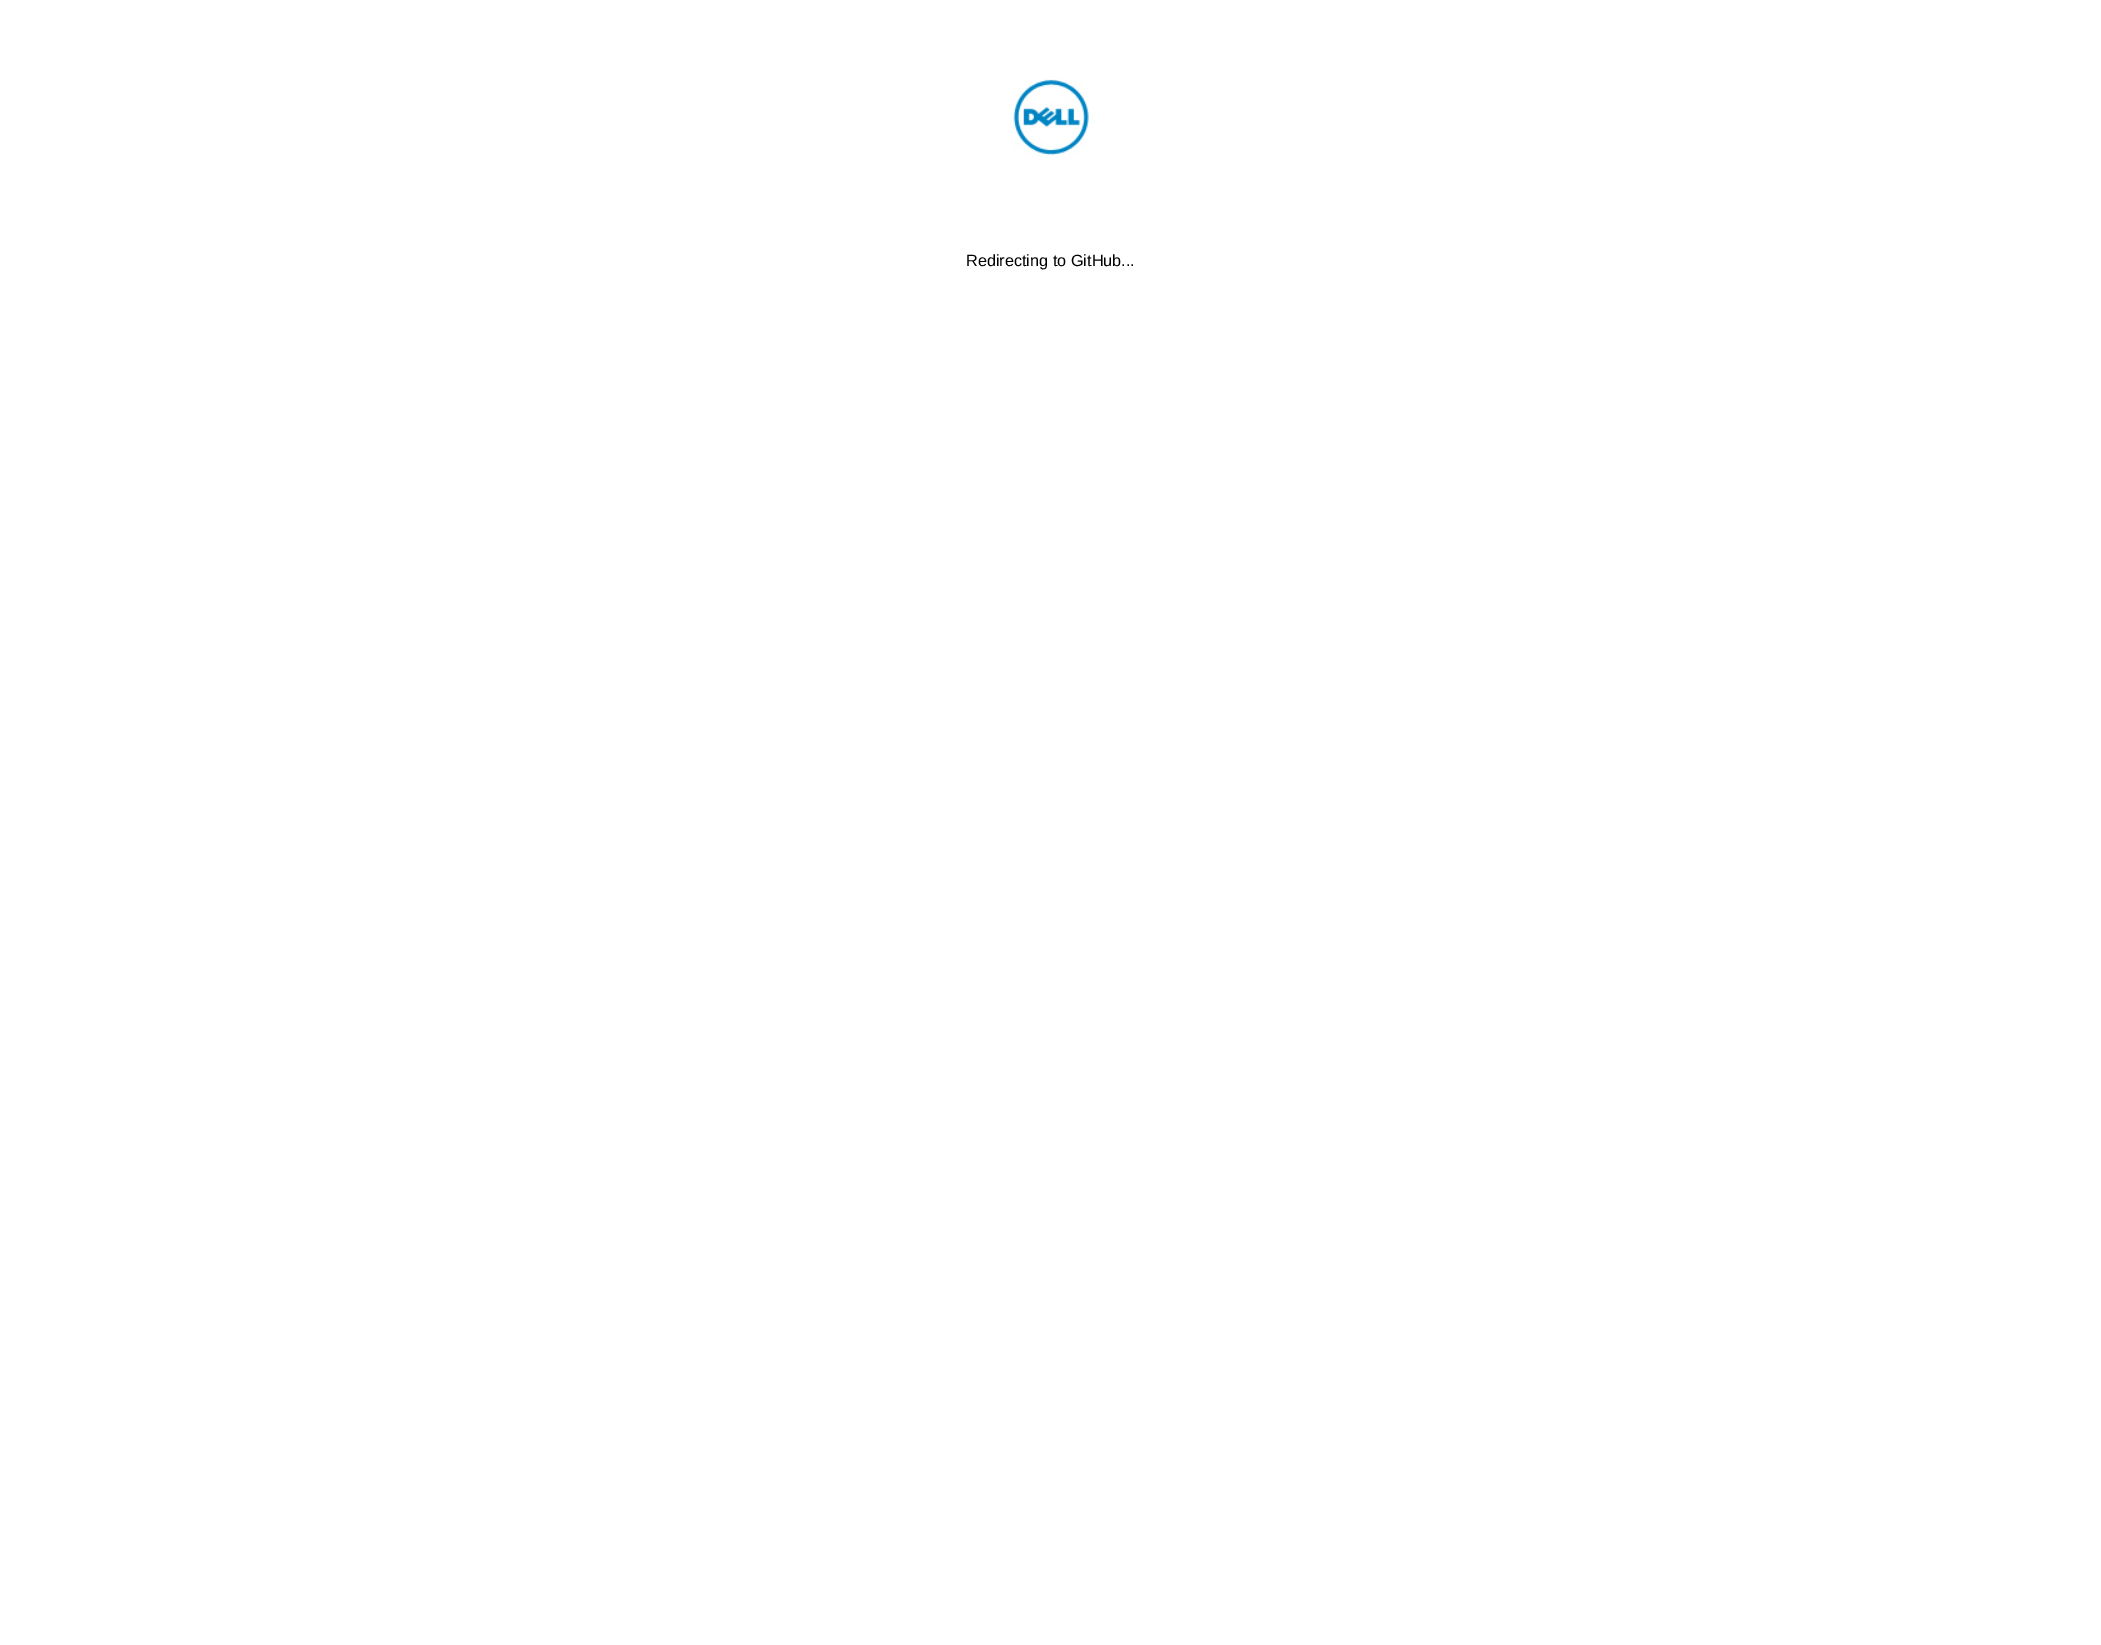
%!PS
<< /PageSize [2101 1645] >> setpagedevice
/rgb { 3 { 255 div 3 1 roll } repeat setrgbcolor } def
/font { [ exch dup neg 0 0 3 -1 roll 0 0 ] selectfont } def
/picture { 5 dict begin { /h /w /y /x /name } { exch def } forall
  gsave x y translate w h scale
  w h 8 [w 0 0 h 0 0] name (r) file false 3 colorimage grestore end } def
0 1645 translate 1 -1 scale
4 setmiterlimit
255 255 255 rgb
0 0 2101 1645 rectfill
(img/1.rgb) 1013 79 76 77 picture
/LiberationSans-Regular 16.25 font
0 0 0 rgb
966 266 moveto (Redirecting to GitHub...) show
showpage
